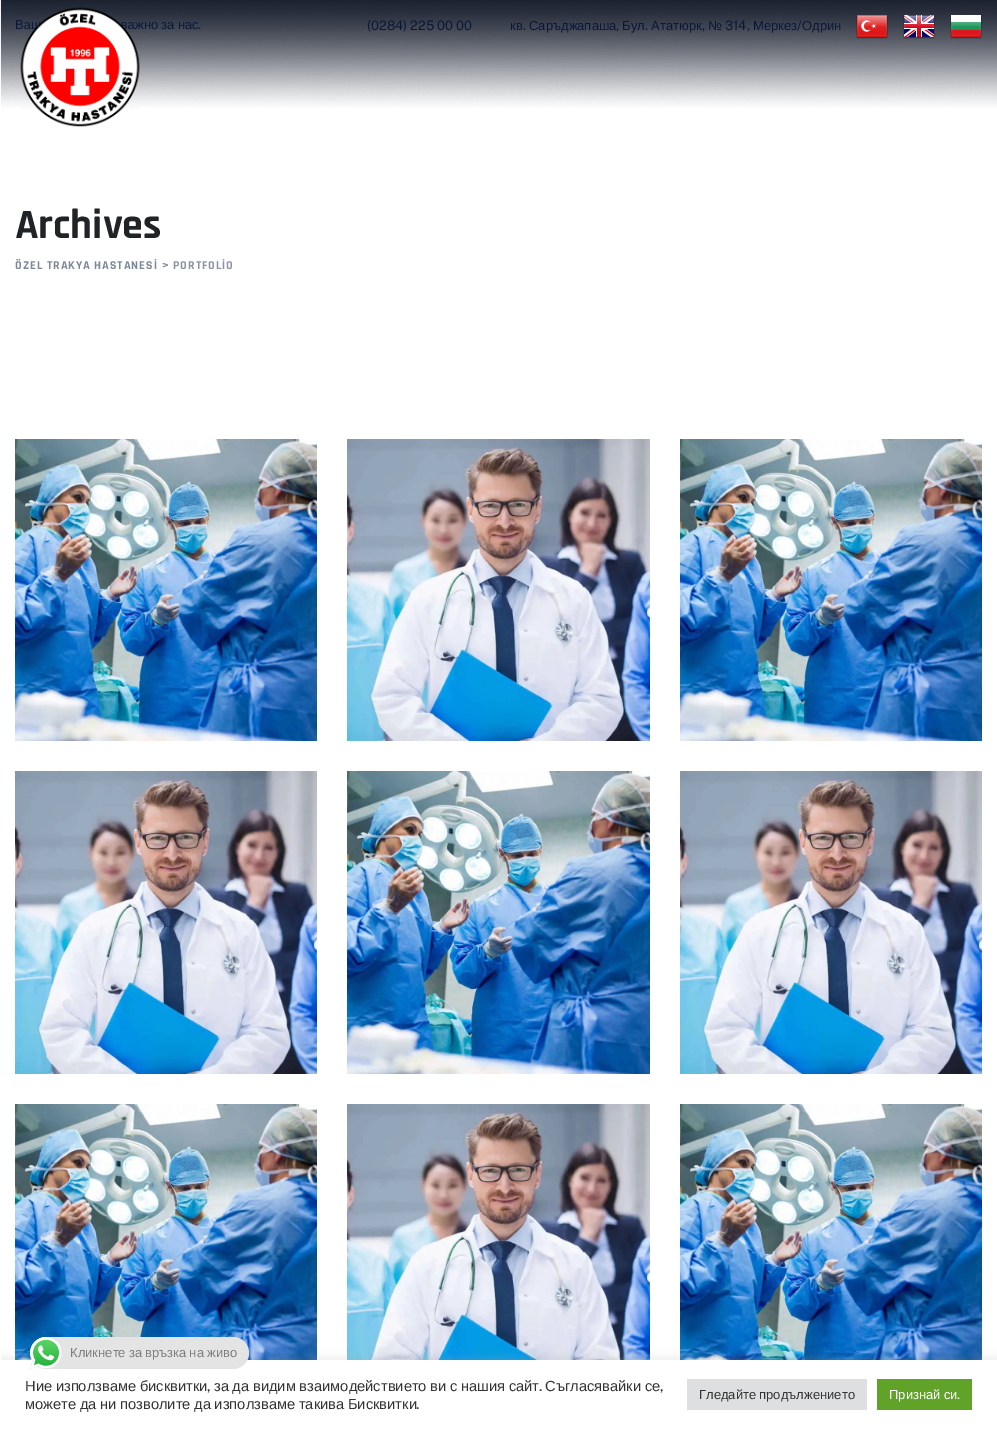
%!PS
<< /PageSize [997 1429] /PageUsesTransparency true >> setpagedevice
/rgb { 3 { 255 div 3 1 roll } repeat setrgbcolor } def
/font { [ exch dup neg 0 0 3 -1 roll 0 0 ] selectfont } def
/alpha { dup .setfillconstantalpha .setstrokeconstantalpha } def
/roundrect { 5 dict begin { /r /h /w /y /x } { exch def } forall
  x r add y moveto x w add y 2 copy h add r arct x w add y h add x 1 index r arct
  x y h add x y r arct x y 2 copy exch w add exch r arct closepath end } def
/shadow { 12 dict begin { /a /b /q /h /w /y /x } { exch def } forall gsave /was 0 def
  9 -2 -9 { dup b mul 4 div /e exch def 1 sub .425 mul 2.718 exch exp 1 add a .99 .min exch div /now exch def
    1 1 now sub 1 was sub div sub alpha /was now def
    w h .min e 2 mul add 0 gt { x e sub y e sub w e 2 mul add h e 2 mul add
      q e add b .6 mul add w h .min 2 div e add .min 0 .max roundrect fill } if } for grestore end } def
/picture { 5 dict begin { /h /w /y /x /name } { exch def } forall
  gsave x y translate w h scale
  w h 8 [w 0 0 h 0 0] name (r) file false 3 colorimage grestore end } def
0 .pushpdf14devicefilter
0 1429 translate 1 -1 scale
4 setmiterlimit
255 255 255 rgb
0 0 997 1429 rectfill
(img/1.rgb) 0 0 997 107 picture
(img/12.rgb) 15 1104 302 256 picture
(img/13.rgb) 347 1104 303 256 picture
(img/14.rgb) 680 1104 302 256 picture
172 171 171 rgb
0 1359 997 69 0 5 0.3 shadow
0.95 alpha
255 255 255 rgb
0 0 1 1360 rectfill
1 alpha
(img/3.rgb) 856 15 32 24 picture
(img/4.rgb) 903 15 32 24 picture
(img/5.rgb) 950 15 32 24 picture
(img/6.rgb) 15 439 302 302 picture
(img/7.rgb) 347 439 303 302 picture
(img/8.rgb) 680 439 302 302 picture
(img/9.rgb) 15 771 302 303 picture
(img/10.rgb) 347 771 303 303 picture
(img/11.rgb) 680 771 302 303 picture
0 1360 997 69 rectfill
228 228 228 rgb
30 1337 219 32 16 roundrect fill
(img/15.rgb) 30 1337 32 32 picture
222 223 224 rgb
687 1379 180 31 rectfill
97 162 41 rgb
877 1379 95 31 rectfill
/LiberationSans-Regular 13 font
8 24 57 rgb
15 29 moveto -0.5 0 32 (Ваш) widthshow
121 29 moveto -0.5 0 32 (важно за нас) widthshow
(img/2.rgb) 20 7 120 120 picture
/PublicSans-Regular 13 font
198 29 moveto (.) show
367 30 moveto (\(0284\) 225 00 00) show
/LiberationSans-Regular 13 font
510 30 moveto (кв) show
/PublicSans-Regular 13 font
523 30 moveto (.) show
/LiberationSans-Regular 13 font
529 30 moveto (Саръджапаша) show
/PublicSans-Regular 13 font
616 30 moveto (,) show
/LiberationSans-Regular 13 font
622 30 moveto (Бул) show
/PublicSans-Regular 13 font
645 30 moveto (.) show
/LiberationSans-Regular 13 font
651 30 moveto (Ататюрк) show
/PublicSans-Regular 13 font
702 30 moveto (,) show
/LiberationSans-Regular 13 font
708 30 moveto (№) show
/PublicSans-Regular 13 font
725 30 moveto (314,) show
/LiberationSans-Regular 13 font
753 30 moveto (Меркез) show
/PublicSans-Regular 13 font
797 30 moveto (/) show
/LiberationSans-Regular 13 font
802 30 moveto (Одрин) show
/Rajdhani-Bold 42 font
32 36 38 rgb
15 238 moveto (Archives) show
/Rajdhani-Bold 12 font
124 135 152 rgb
15 269 moveto 1 0 (ÖZEL TRAKYA HASTANESİ >) ashow
137 147 162 rgb
173 269 moveto 1 0 (PORTFOLİO) ashow
/LiberationSans-Regular 13 font
127 125 125 rgb
70 1357 moveto -0.5 0 32 (Кликнете за връзка на живо) widthshow
/LiberationSans-Regular 14.7 font
51 51 51 rgb
25 1391 moveto -0.5 0 32 (Ние използваме бисквитки) widthshow
/PublicSans-Regular 14.7 font
207 1391 moveto (,) show
/LiberationSans-Regular 14.7 font
214 1391 moveto -0.5 0 32 (за да видим взаимодействието ви с нашия сайт) widthshow
/PublicSans-Regular 14.7 font
539 1391 moveto (.) show
/LiberationSans-Regular 14.7 font
545 1391 moveto -0.5 0 32 (Съгласявайки се) widthshow
/PublicSans-Regular 14.7 font
660 1391 moveto (,) show
/LiberationSans-Regular 14.7 font
25 1409 moveto -0.5 0 32 (можете да ни позволите да използваме такива Бисквитки) widthshow
/PublicSans-Regular 14.7 font
416 1409 moveto (.) show
/LiberationSans-Regular 13 font
699 1399 moveto -0.5 0 32 (Гледайте продължението) widthshow
255 255 255 rgb
889 1399 moveto -0.5 0 32 (Признай си) widthshow
/PublicSans-Regular 13 font
957 1399 moveto (.) show
.poppdf14devicefilter showpage
